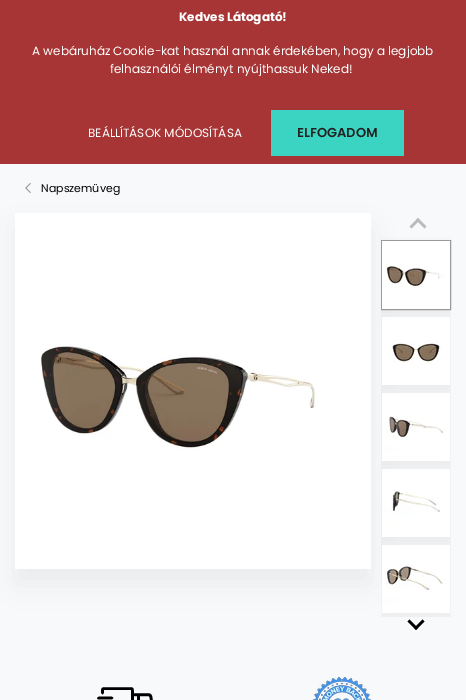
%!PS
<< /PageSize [466 700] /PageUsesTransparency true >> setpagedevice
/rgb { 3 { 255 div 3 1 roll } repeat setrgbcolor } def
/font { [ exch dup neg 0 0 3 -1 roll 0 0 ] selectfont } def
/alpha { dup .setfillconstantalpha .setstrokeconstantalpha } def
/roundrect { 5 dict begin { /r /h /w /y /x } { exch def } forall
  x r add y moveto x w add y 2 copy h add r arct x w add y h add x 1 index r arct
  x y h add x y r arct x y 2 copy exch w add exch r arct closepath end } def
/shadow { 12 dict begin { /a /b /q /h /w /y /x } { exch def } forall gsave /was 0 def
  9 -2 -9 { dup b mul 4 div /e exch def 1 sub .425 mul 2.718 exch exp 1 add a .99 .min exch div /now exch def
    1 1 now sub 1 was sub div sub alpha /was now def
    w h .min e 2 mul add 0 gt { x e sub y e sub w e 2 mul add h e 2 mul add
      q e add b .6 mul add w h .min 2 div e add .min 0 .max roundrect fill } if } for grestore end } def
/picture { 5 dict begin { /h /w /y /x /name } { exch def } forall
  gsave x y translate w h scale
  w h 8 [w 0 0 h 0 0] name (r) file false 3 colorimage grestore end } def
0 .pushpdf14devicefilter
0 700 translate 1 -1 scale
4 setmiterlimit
248 249 250 rgb
0 0 466 700 rectfill
167 53 53 rgb
0 0 466 164 rectfill
59 212 194 rgb
271 110 133 46 rectfill
(img/9.rgb) 25 183 6 10 picture
0 0 0 rgb
15 228 356 356 0 15 0.05 shadow
(img/1.rgb) 15 213 356 356 picture
gsave
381 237 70 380 rectclip
381 245 70 70 0 7 0.05 shadow
grestore
186 187 187 rgb
418 218 moveto 426.5 226.5 lineto 424.5 228.5 lineto 416 220 lineto closepath fill
418 218 moveto 420 220 lineto 411.5 228.5 lineto 409.5 226.5 lineto closepath fill
154 154 154 rgb
381.5 240.5 69 69 rectstroke
(img/2.rgb) 382 241 68 68 picture
gsave
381 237 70 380 rectclip
0 0 0 rgb
381 321 70 70 0 7 0.05 shadow
grestore
(img/3.rgb) 382 317 68 68 picture
gsave
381 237 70 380 rectclip
0 0 0 rgb
381 397 70 70 0 7 0.05 shadow
grestore
(img/4.rgb) 382 393 68 68 picture
gsave
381 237 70 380 rectclip
0 0 0 rgb
381 473 70 70 0 7 0.05 shadow
grestore
(img/5.rgb) 382 469 68 68 picture
gsave
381 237 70 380 rectclip
0 0 0 rgb
381 549 70 70 0 7 0.05 shadow
grestore
(img/6.rgb) 382 545 68 68 picture
0 0 0 rgb
422.5 619.5 moveto 424.5 621.5 lineto 416 630 lineto 414 628 lineto closepath fill
409.5 619.5 moveto 418 628 lineto 416 630 lineto 407.5 621.5 lineto closepath fill
(img/7.rgb) 97 687 56 13 picture
(img/8.rgb) 312 677 60 23 picture
/Poppins-Bold 12 font
255 255 255 rgb
179 21 moveto (Kedves Látogató!) show
/Poppins-Regular 12 font
[
  [(A webáruház Cookie-kat használ annak érdekében, hogy a legjobb) 32 55]
  [(felhasználói élményt nyújthassuk Neked!) 110 73]
  [(BEÁLLÍTÁSOK MÓDOSÍTÁSA) 88 137]
] { aload pop moveto show } forall
/Poppins-SemiBold 13 font
33 33 33 rgb
297 137 moveto (ELFOGADOM) show
/Poppins-Regular 11 font
0 0 0 rgb
41 192 moveto (Napszemüveg) show
.poppdf14devicefilter showpage
